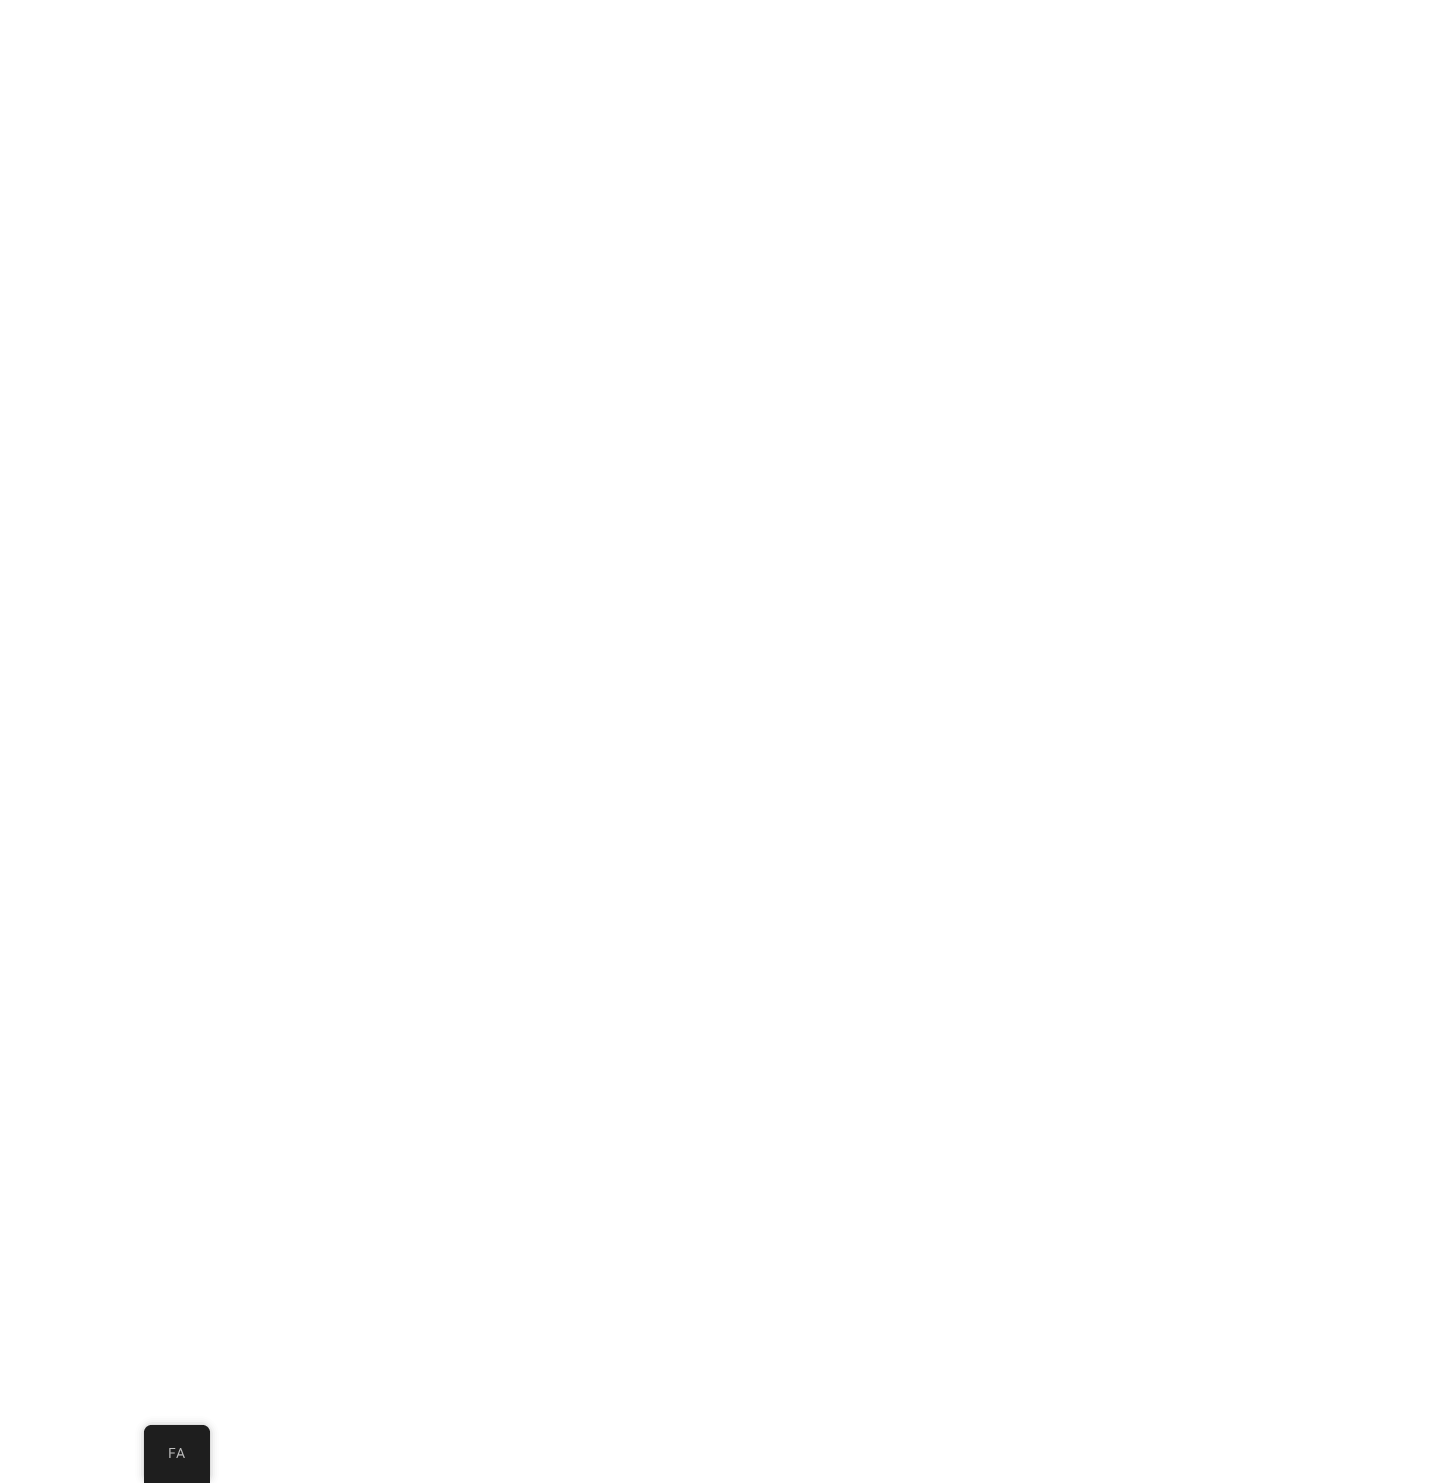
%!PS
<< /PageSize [1444 1483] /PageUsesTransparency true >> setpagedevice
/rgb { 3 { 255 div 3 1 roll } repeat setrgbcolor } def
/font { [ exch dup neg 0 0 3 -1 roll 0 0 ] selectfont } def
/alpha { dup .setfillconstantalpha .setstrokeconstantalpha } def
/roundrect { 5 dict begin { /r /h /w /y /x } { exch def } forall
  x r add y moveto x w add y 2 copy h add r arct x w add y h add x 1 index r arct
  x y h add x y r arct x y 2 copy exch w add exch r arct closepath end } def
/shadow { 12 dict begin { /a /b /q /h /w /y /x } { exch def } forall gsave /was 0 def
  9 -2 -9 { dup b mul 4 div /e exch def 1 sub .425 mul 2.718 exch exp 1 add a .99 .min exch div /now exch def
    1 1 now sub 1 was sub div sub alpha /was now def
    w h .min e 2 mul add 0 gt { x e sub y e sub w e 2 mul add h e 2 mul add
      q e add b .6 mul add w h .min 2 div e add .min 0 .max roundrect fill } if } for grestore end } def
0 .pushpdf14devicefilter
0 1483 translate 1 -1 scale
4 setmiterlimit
255 255 255 rgb
0 0 1444 1483 rectfill
0 0 0 rgb
144 1425 66 58 8 4 0.25 shadow
30 30 30 rgb
152 1425 moveto 202 1425 lineto 206.5 1425 210 1428.5 210 1433 curveto 210 1483 lineto 144 1483 lineto 144 1433 lineto 144 1428.5 147.5 1425 152 1425 curveto closepath fill
/Vazirmatn-Regular 14 font
189 189 189 rgb
168 1458 moveto (FA) show
.poppdf14devicefilter showpage
